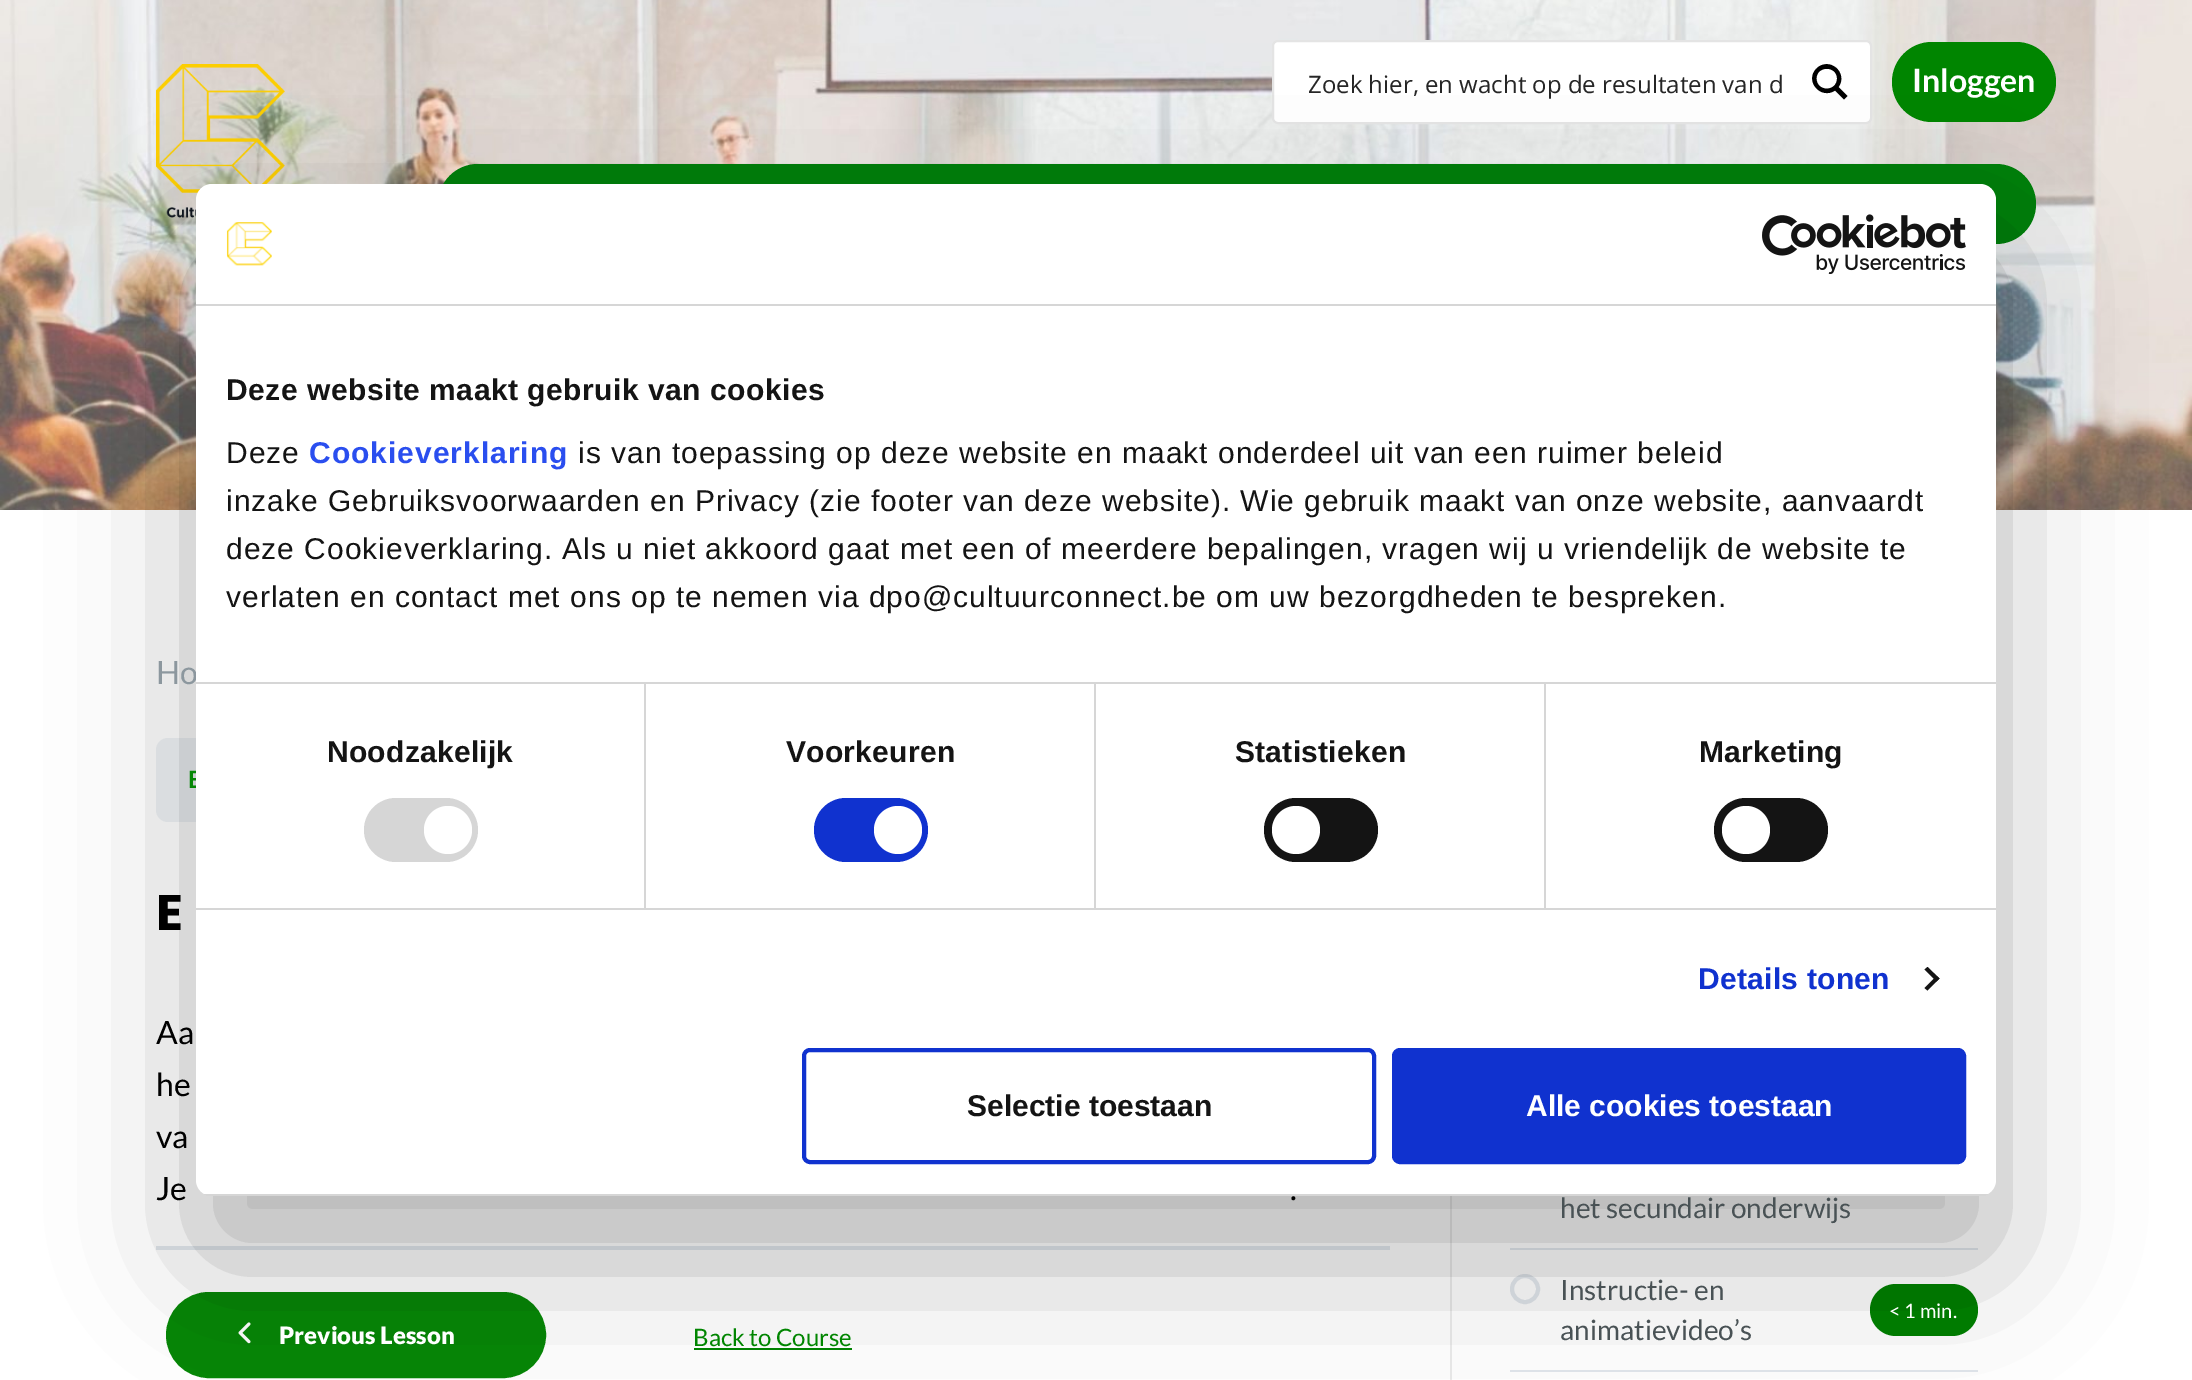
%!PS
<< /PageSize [2192 1380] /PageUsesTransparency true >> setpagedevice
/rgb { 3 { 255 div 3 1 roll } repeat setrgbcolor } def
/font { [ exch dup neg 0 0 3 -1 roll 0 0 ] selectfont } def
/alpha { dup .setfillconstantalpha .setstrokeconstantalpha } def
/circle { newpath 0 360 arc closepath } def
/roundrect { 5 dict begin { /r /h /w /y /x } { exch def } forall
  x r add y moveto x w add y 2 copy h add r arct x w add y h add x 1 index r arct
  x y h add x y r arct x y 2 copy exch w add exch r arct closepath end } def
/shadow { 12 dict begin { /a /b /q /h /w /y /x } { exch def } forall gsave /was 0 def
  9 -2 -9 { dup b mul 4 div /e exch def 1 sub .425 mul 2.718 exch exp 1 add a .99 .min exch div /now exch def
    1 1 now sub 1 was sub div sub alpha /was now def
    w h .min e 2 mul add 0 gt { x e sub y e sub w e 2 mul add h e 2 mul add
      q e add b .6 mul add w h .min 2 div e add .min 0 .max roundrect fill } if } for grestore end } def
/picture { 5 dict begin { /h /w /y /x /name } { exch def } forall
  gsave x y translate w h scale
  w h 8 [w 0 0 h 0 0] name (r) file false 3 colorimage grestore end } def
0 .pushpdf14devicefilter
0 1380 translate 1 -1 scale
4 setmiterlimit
255 255 255 rgb
0 0 2192 1380 rectfill
(img/1.rgb) 0 0 2192 510 picture
(img/2.rgb) 156 64 129 154 picture
1273 41 598 82 5 roundrect gsave fill grestore
228 228 228 rgb
2 setlinewidth
stroke
0 0 0 rgb
1847.5 96 moveto 1838.5 87 lineto 1848.5 73 1829.5 56 1816.5 68.5 curveto 1804 81 1821 100 1835 90.5 curveto 1844 99.5 lineto closepath 1816.5 78.5 moveto 1816.5 65.5 1837 65.5 1837 78.5 curveto 1837 92 1816.5 92 1816.5 78.5 curveto closepath fill
0 133 0 rgb
1892 42 164 80 40 roundrect fill
0 127 10 rgb
438 164 1598 80 40 roundrect fill
240 243 246 rgb
156 738 1234 84 12 roundrect fill
226 231 237 rgb
156 1246 1234 4 rectfill
6 135 6 rgb
168 1294 376 82 41 roundrect gsave fill grestore
4 setlinewidth
stroke
(img/5.rgb) 238 1322 13 22 picture
[
  [694 1348 158 2 0 133 0]
  [1450 1196 2 184 235 235 235]
  [1510 1248 468 2 226 231 237]
  [1510 1370 468 2 226 231 237]
] { aload pop rgb rectfill } forall
1525 1289 13 circle stroke
0 128 0 rgb
1870 1284 108 52 26 roundrect fill
0 0 0 rgb
196 248 1800 1012 16 68 0.3 shadow
/OpenSans-Regular 24 font
38 38 38 rgb
1308 93 moveto (Zoek hier, en wacht op de resultaten van d) show
/Lato-Bold 32 font
255 255 255 rgb
1912 92 moveto (Inloggen) show
/Lato-Regular 32 font
140 151 158 rgb
156 684 moveto (Ho) show
/Lato-Bold 24 font
6 135 6 rgb
188 788 moveto (E) show
255 255 255 rgb
196 184 1800 1012 16 roundrect fill
16 50 207 rgb
1394 1050 570 112 6 roundrect gsave fill grestore
stroke
/LiberationSans-Bold 30 font
255 255 255 rgb
1526 1116 moveto (Alle cookies toestaan) show
16 50 207 rgb
804 1050 570 112 6 roundrect stroke
20 20 20 rgb
967 1116 moveto (Selectie toestaan) show
gsave
196 184 1800 1012 16 roundrect clip newpath
214 214 214 rgb
196 1194 1800 2 rectfill
grestore
1927.5 967 moveto 1939.5 978.5 lineto 1936.5 981.5 lineto 1924.5 969.5 lineto closepath fill
1936.5 976 moveto 1939.5 978.5 lineto 1927.5 990.5 lineto 1924.5 988 lineto closepath fill
1714 798 114 64 32 roundrect fill
255 255 255 rgb
1746 830 24 circle fill
20 20 20 rgb
1264 798 114 64 32 roundrect fill
255 255 255 rgb
1296 830 24 circle fill
16 50 207 rgb
814 798 114 64 32 roundrect fill
255 255 255 rgb
898 830 24 circle fill
214 214 214 rgb
364 798 114 64 32 roundrect fill
255 255 255 rgb
448 830 24 circle fill
/LiberationSans-Regular 30 font
20 20 20 rgb
226 607 moveto 1 0 (verlaten en contact met ons op te nemen via dpo@cultuurconnect.be om uw bezorgdheden te bespreken.) ashow
226 559 moveto 1 0 (deze Cookieverklaring. Als u niet akkoord gaat met een of meerdere bepalingen, vragen wij u vriendelijk de website te) ashow
226 511 moveto 1 0 (inzake Gebruiksvoorwaarden en Privacy \(zie footer van deze website\). Wie gebruik maakt van onze website, aanvaardt) ashow
578 463 moveto 1 0 (is van toepassing op deze website en maakt onderdeel uit van een ruimer beleid) ashow
/LiberationSans-Bold 30 font
42 78 239 rgb
309 463 moveto 1 0 (Cookieverklaring) ashow
/LiberationSans-Regular 30 font
20 20 20 rgb
226 463 moveto 1 0 (Deze) ashow
/LiberationSans-Bold 30 font
226 400 moveto 0.5 0 (Deze website maakt gebruik van cookies) ashow
214 214 214 rgb
196 682 1800 2 rectfill
16 50 207 rgb
1698 989 moveto 0.25 0 (Details tonen) ashow
20 20 20 rgb
1699 762 moveto 0.25 0 (Marketing) ashow
1235 762 moveto 0.25 0 (Statistieken) ashow
214 214 214 rgb
1544 684 2 224 rectfill
20 20 20 rgb
786 762 moveto 0.25 0 (Voorkeuren) ashow
214 214 214 rgb
1094 684 2 224 rectfill
20 20 20 rgb
327 762 moveto 0.25 0 (Noodzakelijk) ashow
214 214 214 rgb
644 684 2 224 rectfill
196 908 1800 2 rectfill
(img/4.rgb) 1762 214 204 60 picture
(img/3.rgb) 226 222 46 44 picture
196 304 1800 2 rectfill
/Poppins-Bold 50 font
0 0 0 rgb
156 930 moveto (E) show
/Lato-Regular 32 font
[
  [(Aa) 156 1044]
  [(he) 156 1096]
  [(va) 156 1148]
  [(Je) 156 1200]
  [(.) 1290 1200]
] { aload pop moveto show } forall
/Lato-Black 24 font
255 255 255 rgb
279 1344 moveto (Previous Lesson) show
/Lato-Regular 24 font
0 133 0 rgb
693 1346 moveto (Back to Course) show
/Lato-Regular 28 font
73 82 85 rgb
1560 1218 moveto (het secundair onderwijs) show
1560 1300 moveto (Instructie- en) show
/Lato-Regular 20 font
255 255 255 rgb
1889 1318 moveto (< 1 min.) show
/Lato-Regular 28 font
73 82 85 rgb
1560 1340 moveto (animatievideo’s) show
.poppdf14devicefilter showpage
